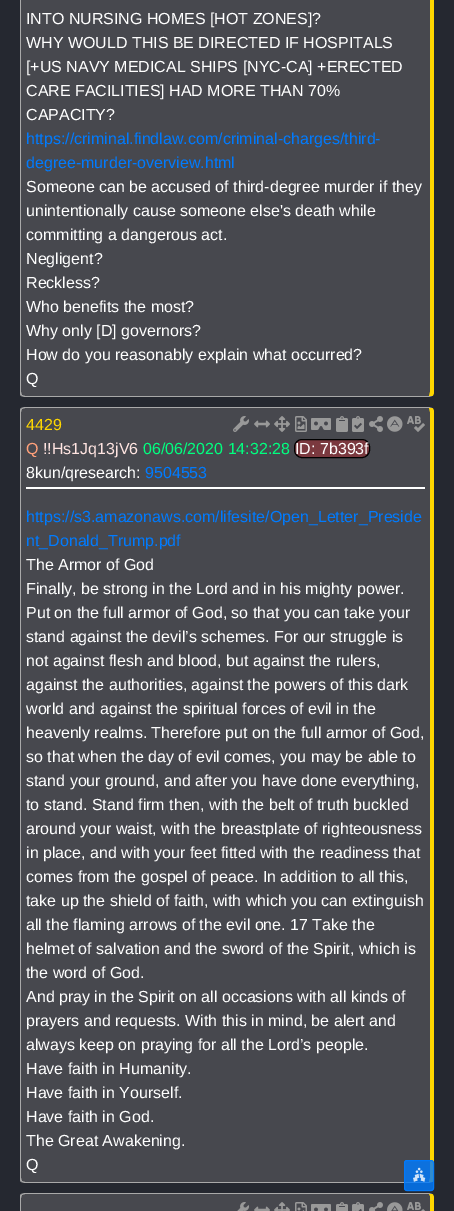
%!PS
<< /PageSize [454 1211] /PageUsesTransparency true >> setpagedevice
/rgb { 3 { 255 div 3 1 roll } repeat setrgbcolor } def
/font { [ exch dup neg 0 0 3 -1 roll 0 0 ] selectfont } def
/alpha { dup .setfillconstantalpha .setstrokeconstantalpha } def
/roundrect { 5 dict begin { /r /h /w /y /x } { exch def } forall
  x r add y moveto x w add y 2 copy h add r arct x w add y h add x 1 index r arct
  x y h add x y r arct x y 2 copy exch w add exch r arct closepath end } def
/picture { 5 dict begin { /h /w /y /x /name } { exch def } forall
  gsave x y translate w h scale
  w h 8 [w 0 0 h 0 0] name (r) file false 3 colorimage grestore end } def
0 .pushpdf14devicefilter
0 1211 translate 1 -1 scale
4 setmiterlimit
37 40 48 rgb
0 0 454 1211 rectfill
71 72 78 rgb
25 -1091 moveto 429 -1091 lineto 430 -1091 430 -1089 430 -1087 curveto 430 392 lineto 430 394 430 396 429 396 curveto 25 396 lineto 23 396 21 394 21 392 curveto 21 -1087 lineto 21 -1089 23 -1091 25 -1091 curveto closepath fill
255 215 0 rgb
434 392 moveto 434 -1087 lineto 434 -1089 433 -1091 432 -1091 curveto 429 -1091 lineto 430 -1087 lineto 430 392 lineto 429 396 lineto 432 396 lineto 433 396 434 394 434 392 curveto closepath fill
169 169 169 rgb
25 397 moveto 429 397 lineto 432 396 lineto 429 396 lineto 25 396 lineto 22 395 lineto 21 396 lineto 22 396 24 397 25 397 curveto closepath fill
20 -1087 moveto 20 392 lineto 20 394 20 395 21 396 curveto 22 395 lineto 21 392 lineto 21 -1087 lineto 22 -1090 lineto 21 -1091 lineto 20 -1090 20 -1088 20 -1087 curveto closepath fill
71 72 78 rgb
25 408 moveto 429 408 lineto 430 408 430 410 430 412 curveto 430 1178 lineto 430 1180 430 1182 429 1182 curveto 25 1182 lineto 23 1182 21 1180 21 1178 curveto 21 412 lineto 21 410 23 408 25 408 curveto closepath fill
169 169 169 rgb
25 407 moveto 24 407 22 408 21 408 curveto 22 409 lineto 25 408 lineto 429 408 lineto 432 408 lineto 429 407 lineto closepath fill
255 215 0 rgb
434 1178 moveto 434 412 lineto 434 410 433 408 432 408 curveto 429 408 lineto 430 412 lineto 430 1178 lineto 429 1182 lineto 432 1182 lineto 433 1182 434 1180 434 1178 curveto closepath fill
169 169 169 rgb
25 1183 moveto 429 1183 lineto 432 1182 lineto 429 1182 lineto 25 1182 lineto 22 1181 lineto 21 1182 lineto 22 1182 24 1183 25 1183 curveto closepath fill
20 412 moveto 20 1178 lineto 20 1180 20 1181 21 1182 curveto 22 1181 lineto 21 1178 lineto 21 412 lineto 22 409 lineto 21 408 lineto 20 409 20 410 20 412 curveto closepath fill
(img/1.rgb) 233 416 16 16 picture
(img/2.rgb) 254 420 16 8 picture
(img/3.rgb) 274 416 16 16 picture
(img/4.rgb) 295 416 12 16 picture
(img/5.rgb) 311 418 20 12 picture
(img/6.rgb) 336 416 12 16 picture
(img/7.rgb) 352 416 12 16 picture
(img/8.rgb) 369 416 14 16 picture
(img/9.rgb) 387 416 16 16 picture
(img/10.rgb) 407 416 18 16 picture
123 57 63 rgb
294.5 439.5 75 18 7.5 roundrect gsave fill grestore
0 0 0 rgb
stroke
255 255 255 rgb
26 487 399 2 rectfill
71 72 78 rgb
25 1194 moveto 429 1194 lineto 430 1194 430 1196 430 1198 curveto 430 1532 lineto 430 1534 430 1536 429 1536 curveto 25 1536 lineto 23 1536 21 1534 21 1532 curveto 21 1198 lineto 21 1196 23 1194 25 1194 curveto closepath fill
169 169 169 rgb
25 1193 moveto 24 1193 22 1194 21 1194 curveto 22 1195 lineto 25 1194 lineto 429 1194 lineto 432 1194 lineto 429 1193 lineto closepath fill
255 215 0 rgb
434 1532 moveto 434 1198 lineto 434 1196 433 1194 432 1194 curveto 429 1194 lineto 430 1196 lineto 430 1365 lineto 430 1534 lineto 429 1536 lineto 432 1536 lineto 433 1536 434 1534 434 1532 curveto closepath fill
169 169 169 rgb
20 1198 moveto 20 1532 lineto 20 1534 20 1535 21 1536 curveto 22 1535 lineto 21 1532 lineto 21 1198 lineto 22 1195 lineto 21 1194 lineto 20 1195 20 1196 20 1198 curveto closepath fill
(img/11.rgb) 237 1202 12 9 picture
(img/12.rgb) 254 1206 16 5 picture
(img/13.rgb) 274 1202 16 9 picture
(img/14.rgb) 295 1202 12 9 picture
(img/15.rgb) 311 1204 20 7 picture
(img/16.rgb) 336 1202 12 9 picture
(img/17.rgb) 352 1202 12 9 picture
(img/18.rgb) 369 1202 14 9 picture
(img/19.rgb) 387 1202 16 9 picture
(img/20.rgb) 407 1202 18 9 picture
0.81 alpha
0 123 255 rgb
404 1160 30 31 3 roundrect fill
404.5 1160.5 29 30 2.5 roundrect stroke
1 alpha
(img/21.rgb) 413 1167 13 15 picture
/LiberationSans-Regular 16 font
255 255 255 rgb
[
  [(INTO NURSING HOMES [HOT ZONES]?) 26 24]
  [(WHY WOULD THIS BE DIRECTED IF HOSPITALS) 26 48]
  [([+US NAVY MEDICAL SHIPS [NYC-CA] +ERECTED) 26 72]
  [(CARE FACILITIES] HAD MORE THAN 70%) 26 96]
  [(CAPACITY?) 26 120]
] { aload pop moveto show } forall
0 123 255 rgb
26 144 moveto (https://criminal.findlaw.com/criminal-charges/third-) show
26 168 moveto (degree-murder-overview.html) show
255 255 255 rgb
[
  [(Someone can be accused of third-degree murder if they) 26 192]
  [(unintentionally cause someone else's death while) 26 216]
  [(committing a dangerous act.) 26 240]
  [(Negligent?) 26 264]
  [(Reckless?) 26 288]
  [(Who benefits the most?) 26 312]
  [(Why only [D] governors?) 26 336]
  [(How do you reasonably explain what occurred?) 26 360]
  [(Q) 26 384]
] { aload pop moveto show } forall
255 215 0 rgb
26 430 moveto (4429) show
255 160 122 rgb
26 454 moveto (Q) show
255 228 225 rgb
43 454 moveto (!!Hs1Jq13jV6) show
0 255 127 rgb
143 454 moveto (06/06/2020 14:32:28) show
255 255 255 rgb
295 454 moveto (ID: 7b393f) show
26 478 moveto (8kun/qresearch:) show
0 123 255 rgb
[
  [(9504553) 145 478]
  [(https://s3.amazonaws.com/lifesite/Open_Letter_Preside) 26 522]
  [(nt_Donald_Trump.pdf) 26 546]
] { aload pop moveto show } forall
255 255 255 rgb
[
  [(The Armor of God) 26 570]
  [(Finally, be strong in the Lord and in his mighty power.) 26 594]
  [(Put on the full armor of God, so that you can take your) 26 618]
  [(stand against the devil’s schemes. For our struggle is) 26 642]
  [(not against flesh and blood, but against the rulers,) 26 666]
  [(against the authorities, against the powers of this dark) 26 690]
  [(world and against the spiritual forces of evil in the) 26 714]
  [(heavenly realms. Therefore put on the full armor of God,) 26 738]
  [(so that when the day of evil comes, you may be able to) 26 762]
  [(stand your ground, and after you have done everything,) 26 786]
  [(to stand. Stand firm then, with the belt of truth buckled) 26 810]
  [(around your waist, with the breastplate of righteousness) 26 834]
  [(in place, and with your feet fitted with the readiness that) 26 858]
  [(comes from the gospel of peace. In addition to all this,) 26 882]
  [(take up the shield of faith, with which you can extinguish) 26 906]
  [(all the flaming arrows of the evil one. 17 Take the) 26 930]
  [(helmet of salvation and the sword of the Spirit, which is) 26 954]
  [(the word of God.) 26 978]
  [(And pray in the Spirit on all occasions with all kinds of) 26 1002]
  [(prayers and requests. With this in mind, be alert and) 26 1026]
  [(always keep on praying for all the Lord’s people.) 26 1050]
  [(Have faith in Humanity.) 26 1074]
  [(Have faith in Yourself.) 26 1098]
  [(Have faith in God.) 26 1122]
  [(The Great Awakening.) 26 1146]
  [(Q) 26 1170]
] { aload pop moveto show } forall
.poppdf14devicefilter showpage
